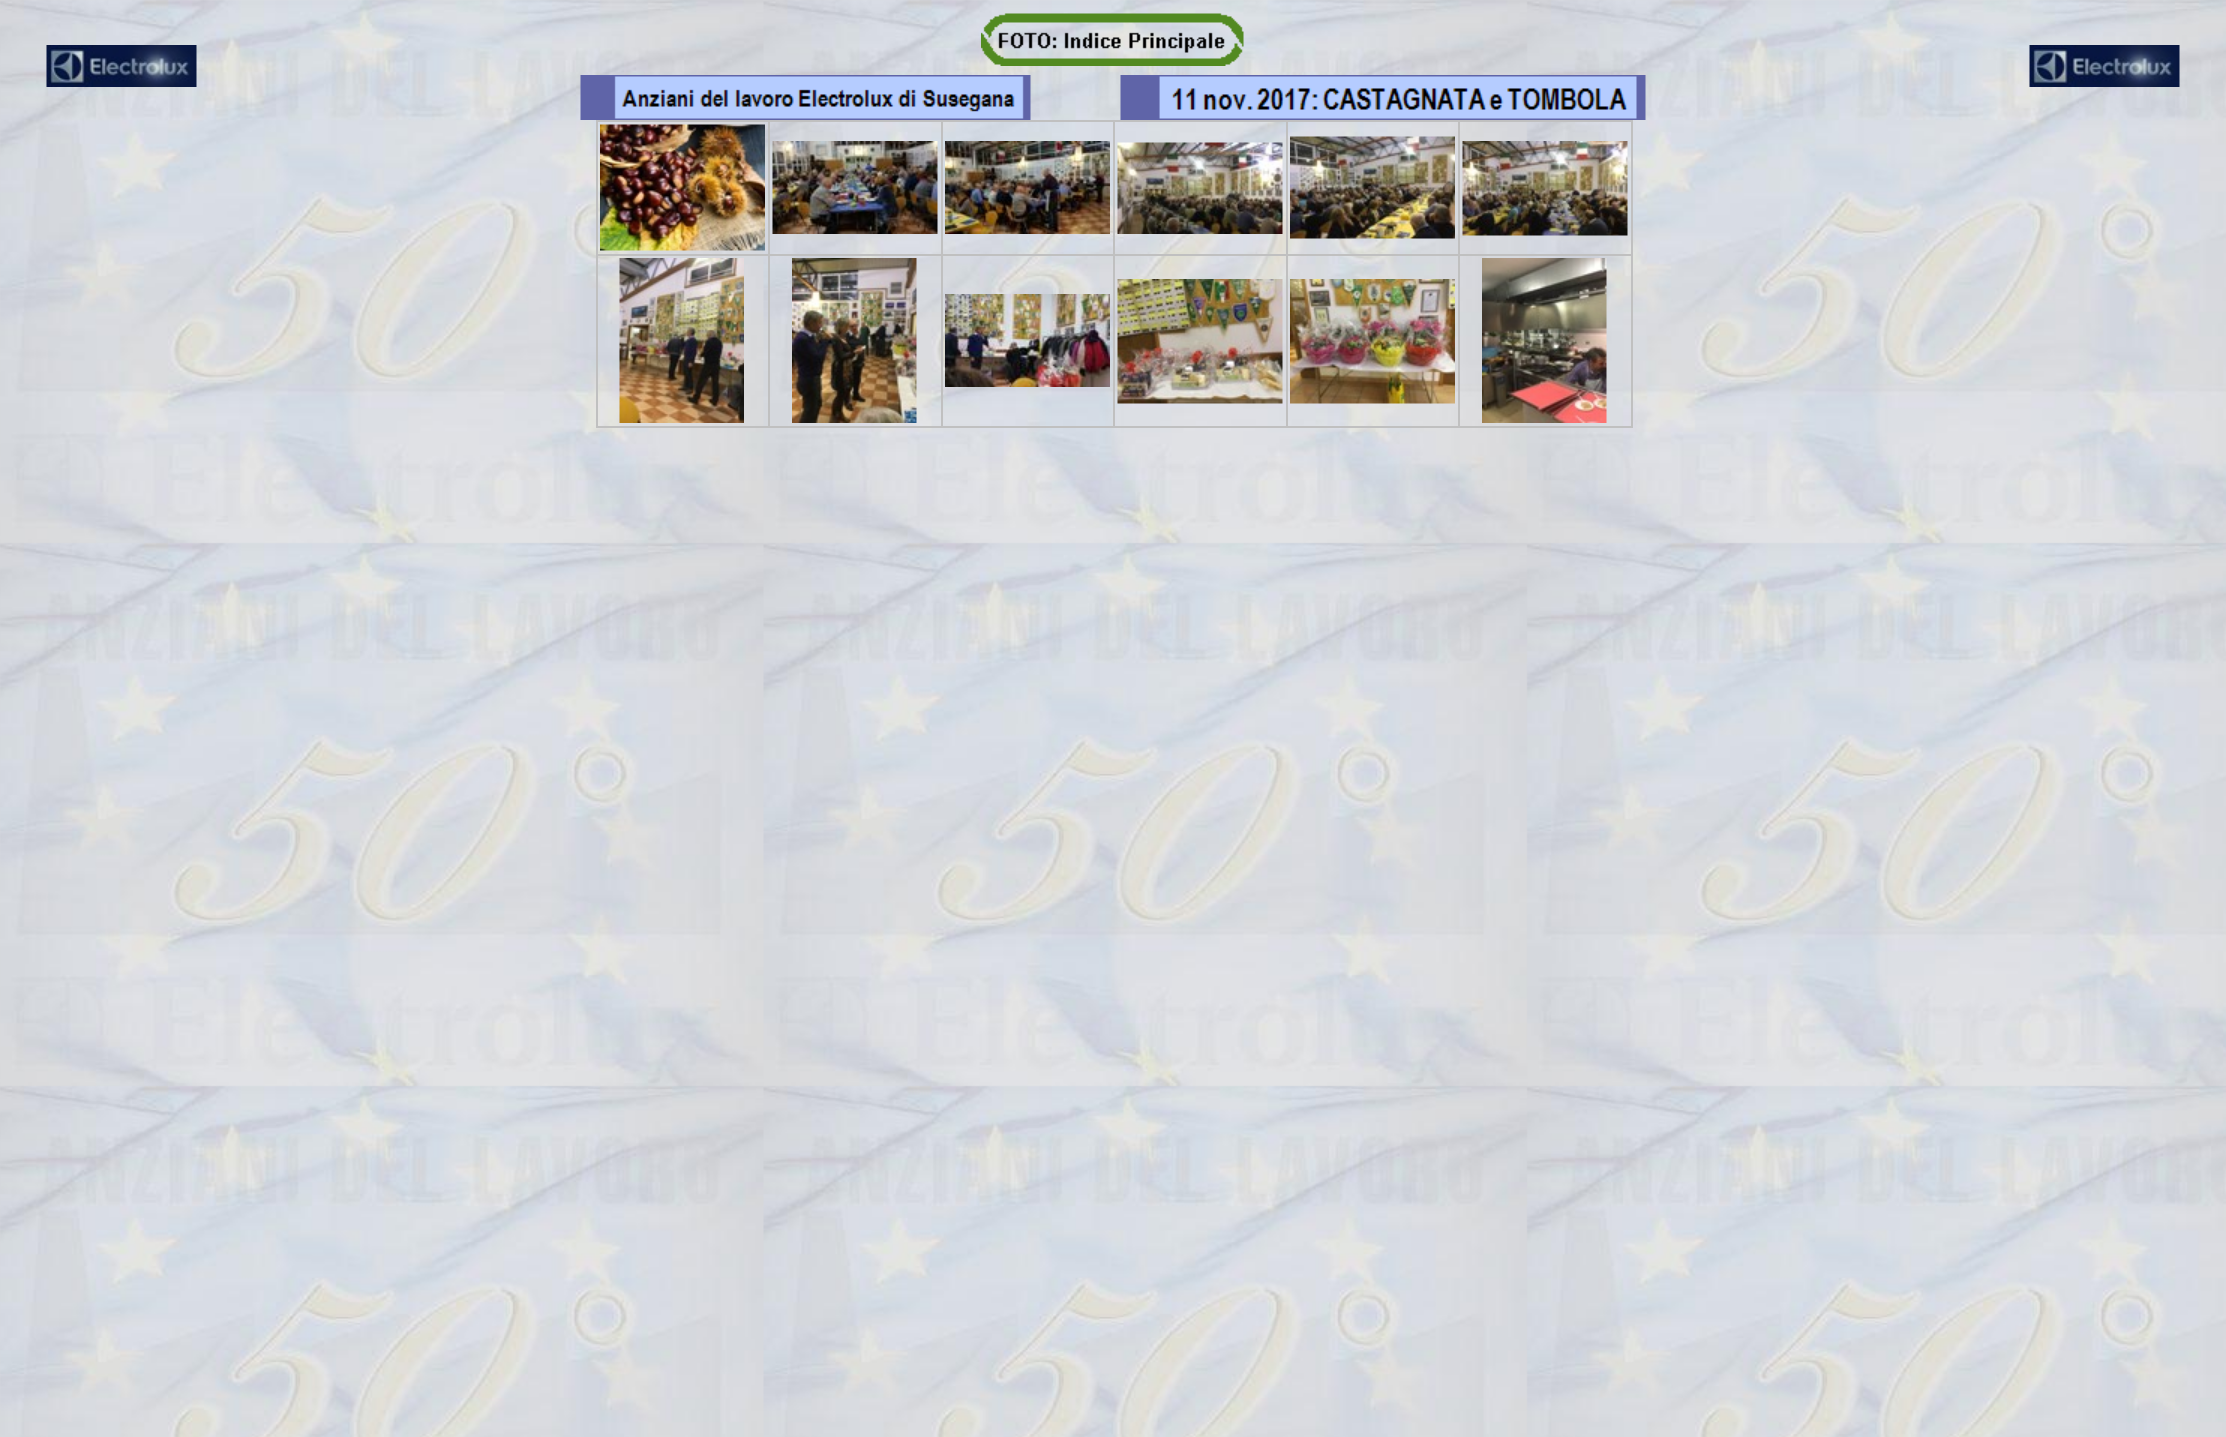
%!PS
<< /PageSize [2226 1437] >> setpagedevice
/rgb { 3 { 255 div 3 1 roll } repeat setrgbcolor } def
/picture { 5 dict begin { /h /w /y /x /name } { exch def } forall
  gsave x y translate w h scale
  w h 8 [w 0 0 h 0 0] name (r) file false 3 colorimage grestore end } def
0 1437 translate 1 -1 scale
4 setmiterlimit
255 255 255 rgb
0 0 2226 1437 rectfill
(img/1.rgb) 0 0 2226 1437 picture
(img/2.rgb) 46 45 151 42 picture
(img/3.rgb) 981 13 263 53 picture
(img/4.rgb) 580 75 451 45 picture
(img/5.rgb) 1120 75 526 45 picture
(img/6.rgb) 2029 45 151 42 picture
[
  [596 120 1036 2 192 192 192]
  [1631 120 2 308 192 192 192]
  [596 426 1036 2 192 192 192]
  [596 120 2 308 192 192 192]
] { aload pop rgb rectfill } forall
(img/7.rgb) 600 124 165 127 picture
[
  [1458 254 174 2 192 192 192]
  [1458 254 2 174 192 192 192]
  [1286 254 174 2 192 192 192]
  [1286 254 2 174 192 192 192]
  [1113 254 174 2 192 192 192]
  [1113 254 2 174 192 192 192]
  [941 254 174 2 192 192 192]
  [941 254 2 174 192 192 192]
  [768 254 174 2 192 192 192]
  [768 254 2 174 192 192 192]
  [596 254 174 2 192 192 192]
  [768 120 2 135 192 192 192]
] { aload pop rgb rectfill } forall
(img/8.rgb) 772 141 166 93 picture
941 120 2 135 rectfill
(img/9.rgb) 945 141 165 93 picture
1113 120 2 135 rectfill
(img/10.rgb) 1117 142 166 92 picture
1286 120 2 135 rectfill
(img/11.rgb) 1290 136 165 103 picture
1458 120 2 135 rectfill
(img/12.rgb) 1462 141 166 95 picture
(img/13.rgb) 619 258 125 165 picture
(img/14.rgb) 792 258 125 165 picture
(img/15.rgb) 945 294 165 93 picture
(img/16.rgb) 1117 279 166 125 picture
(img/17.rgb) 1290 279 165 125 picture
(img/18.rgb) 1482 258 125 165 picture
showpage
